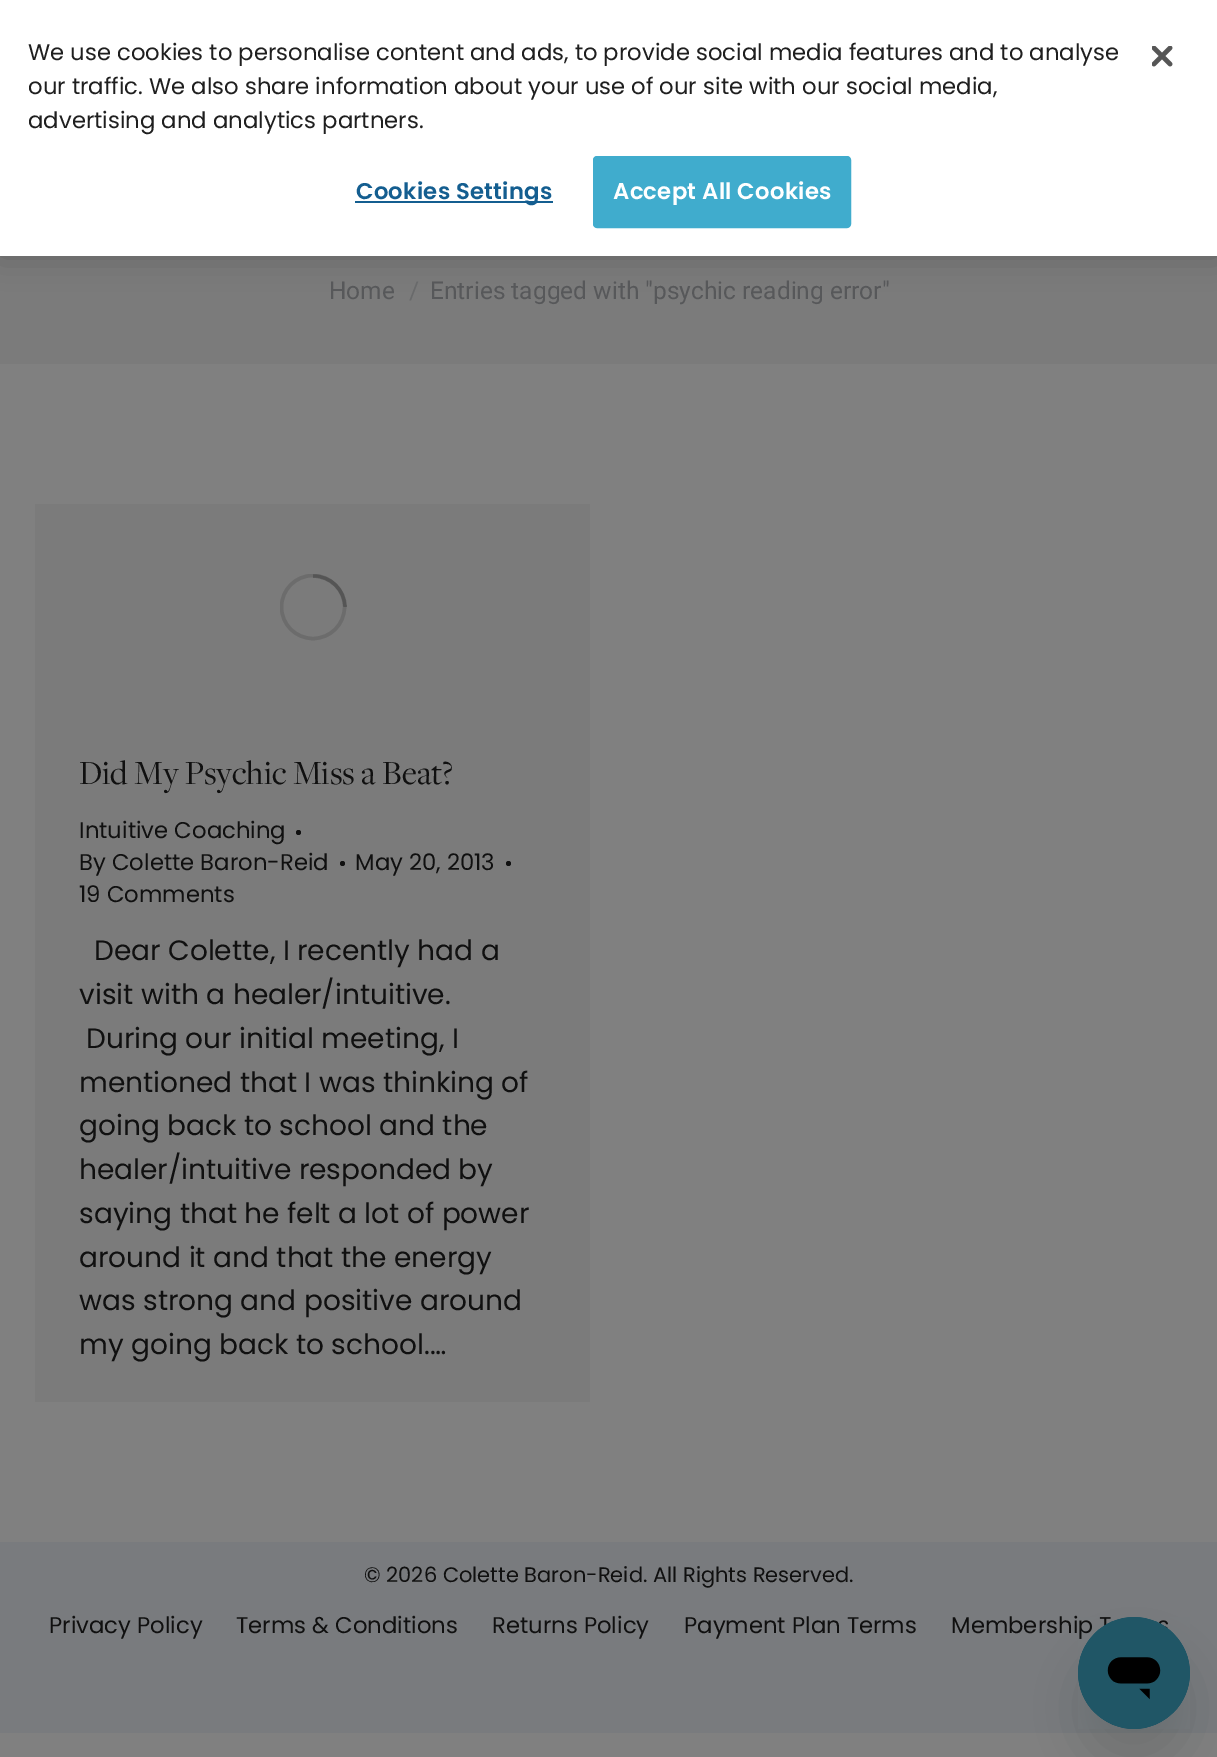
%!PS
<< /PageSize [1217 1757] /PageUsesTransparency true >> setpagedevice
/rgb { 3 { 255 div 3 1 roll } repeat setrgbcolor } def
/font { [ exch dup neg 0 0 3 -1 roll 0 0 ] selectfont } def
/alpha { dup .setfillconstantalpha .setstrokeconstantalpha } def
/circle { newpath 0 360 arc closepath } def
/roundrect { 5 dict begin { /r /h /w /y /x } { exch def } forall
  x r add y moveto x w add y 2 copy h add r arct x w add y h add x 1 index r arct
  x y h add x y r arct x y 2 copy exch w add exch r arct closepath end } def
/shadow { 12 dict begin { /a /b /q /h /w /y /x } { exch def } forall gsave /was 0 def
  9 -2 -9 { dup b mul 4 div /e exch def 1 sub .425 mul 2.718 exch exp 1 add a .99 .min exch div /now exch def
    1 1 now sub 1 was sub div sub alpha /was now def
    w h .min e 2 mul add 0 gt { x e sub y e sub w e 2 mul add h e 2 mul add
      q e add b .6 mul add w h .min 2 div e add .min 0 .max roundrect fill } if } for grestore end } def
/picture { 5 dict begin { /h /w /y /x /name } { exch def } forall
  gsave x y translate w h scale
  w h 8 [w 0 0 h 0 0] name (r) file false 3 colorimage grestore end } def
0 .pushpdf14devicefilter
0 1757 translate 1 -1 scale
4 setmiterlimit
128 128 128 rgb
0 0 1217 1757 rectfill
123 123 123 rgb
0 256 1217 108 rectfill
0 0 0 rgb
0 0 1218 256 0 16 0.2 shadow
255 255 255 rgb
0 0 1217 256 rectfill
20 94 144 rgb
355 201 198 2 rectfill
64 172 205 rgb
594 157 256 70 3 roundrect gsave fill grestore
2 setlinewidth
stroke
(img/1.rgb) 1152 46 21 21 picture
123 123 123 rgb
35 504 555 898 rectfill
gsave
280 574 67 67 rectclip
108 108 108 rgb
3.5 setlinewidth
313 607 31.5 circle stroke
grestore
0.25 alpha
16 16 16 rgb
3.5 setlinewidth
345 607 moveto 345 590 330.5 576 313 576 curveto stroke
1 alpha
298.5 832.5 2.5 circle fill
342.5 863.5 2.5 circle fill
508.5 863.5 2.5 circle fill
121 123 126 rgb
0 1542 1217 191 rectfill
12 37 39 rgb
1078 1652 112 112 56 26 0.15 shadow
/Poppins-Regular 22.75 font
31 31 31 rgb
[
  [(We use cookies to personalise content and ads, to provide social media features and to analyse) 28 60]
  [(our traffic. We also share information about your use of our site with our social media,) 28 94]
  [(advertising and analytics partners.) 28 128]
] { aload pop moveto show } forall
/Poppins-SemiBold 22.75 font
20 94 144 rgb
356 199 moveto 0.25 0 (Cookies Settings) ashow
255 255 255 rgb
613 199 moveto 0.25 0 (Accept All Cookies) ashow
/Roboto-Regular 24.5 font
87 88 90 rgb
329 299 moveto (Home) show
105 106 107 rgb
409 299 moveto (/) show
87 88 90 rgb
430 299 moveto (Entries tagged with "psychic reading error") show
/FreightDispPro-Regular 35 font
16 16 16 rgb
79 784 moveto (Did My Psychic Miss a Beat?) show
/Poppins-Regular 22.75 font
[
  [(Intuitive Coaching) 79 838]
  [(By Colette Baron-Reid) 79 870]
  [(May 20, 2013) 355 870]
  [(19 Comments) 79 902]
] { aload pop moveto show } forall
/Poppins-Regular 28 font
[
  [(Dear Colette, I recently had a) 94 960]
  [(visit with a healer/intuitive.) 79 1004]
  [(During our initial meeting, I) 86 1048]
  [(mentioned that I was thinking of) 79 1092]
  [(going back to school and the) 79 1135]
  [(healer/intuitive responded by) 79 1179]
  [(saying that he felt a lot of power) 79 1223]
  [(around it and that the energy) 79 1267]
  [(was strong and positive around) 79 1310]
  [(my going back to school.…) 79 1354]
] { aload pop moveto show } forall
/Poppins-Regular 21 font
364 1582 moveto (© 2026 Colette Baron-Reid. All Rights Reserved.) show
/Poppins-Regular 22.75 font
[
  [(Privacy Policy) 49 1633]
  [(Terms & Conditions) 236 1633]
  [(Returns Policy) 492 1633]
  [(Payment Plan Terms) 684 1633]
  [(Membership T) 951 1633]
] { aload pop moveto show } forall
(img/2.rgb) 1078 1617 112 112 picture
.poppdf14devicefilter showpage
